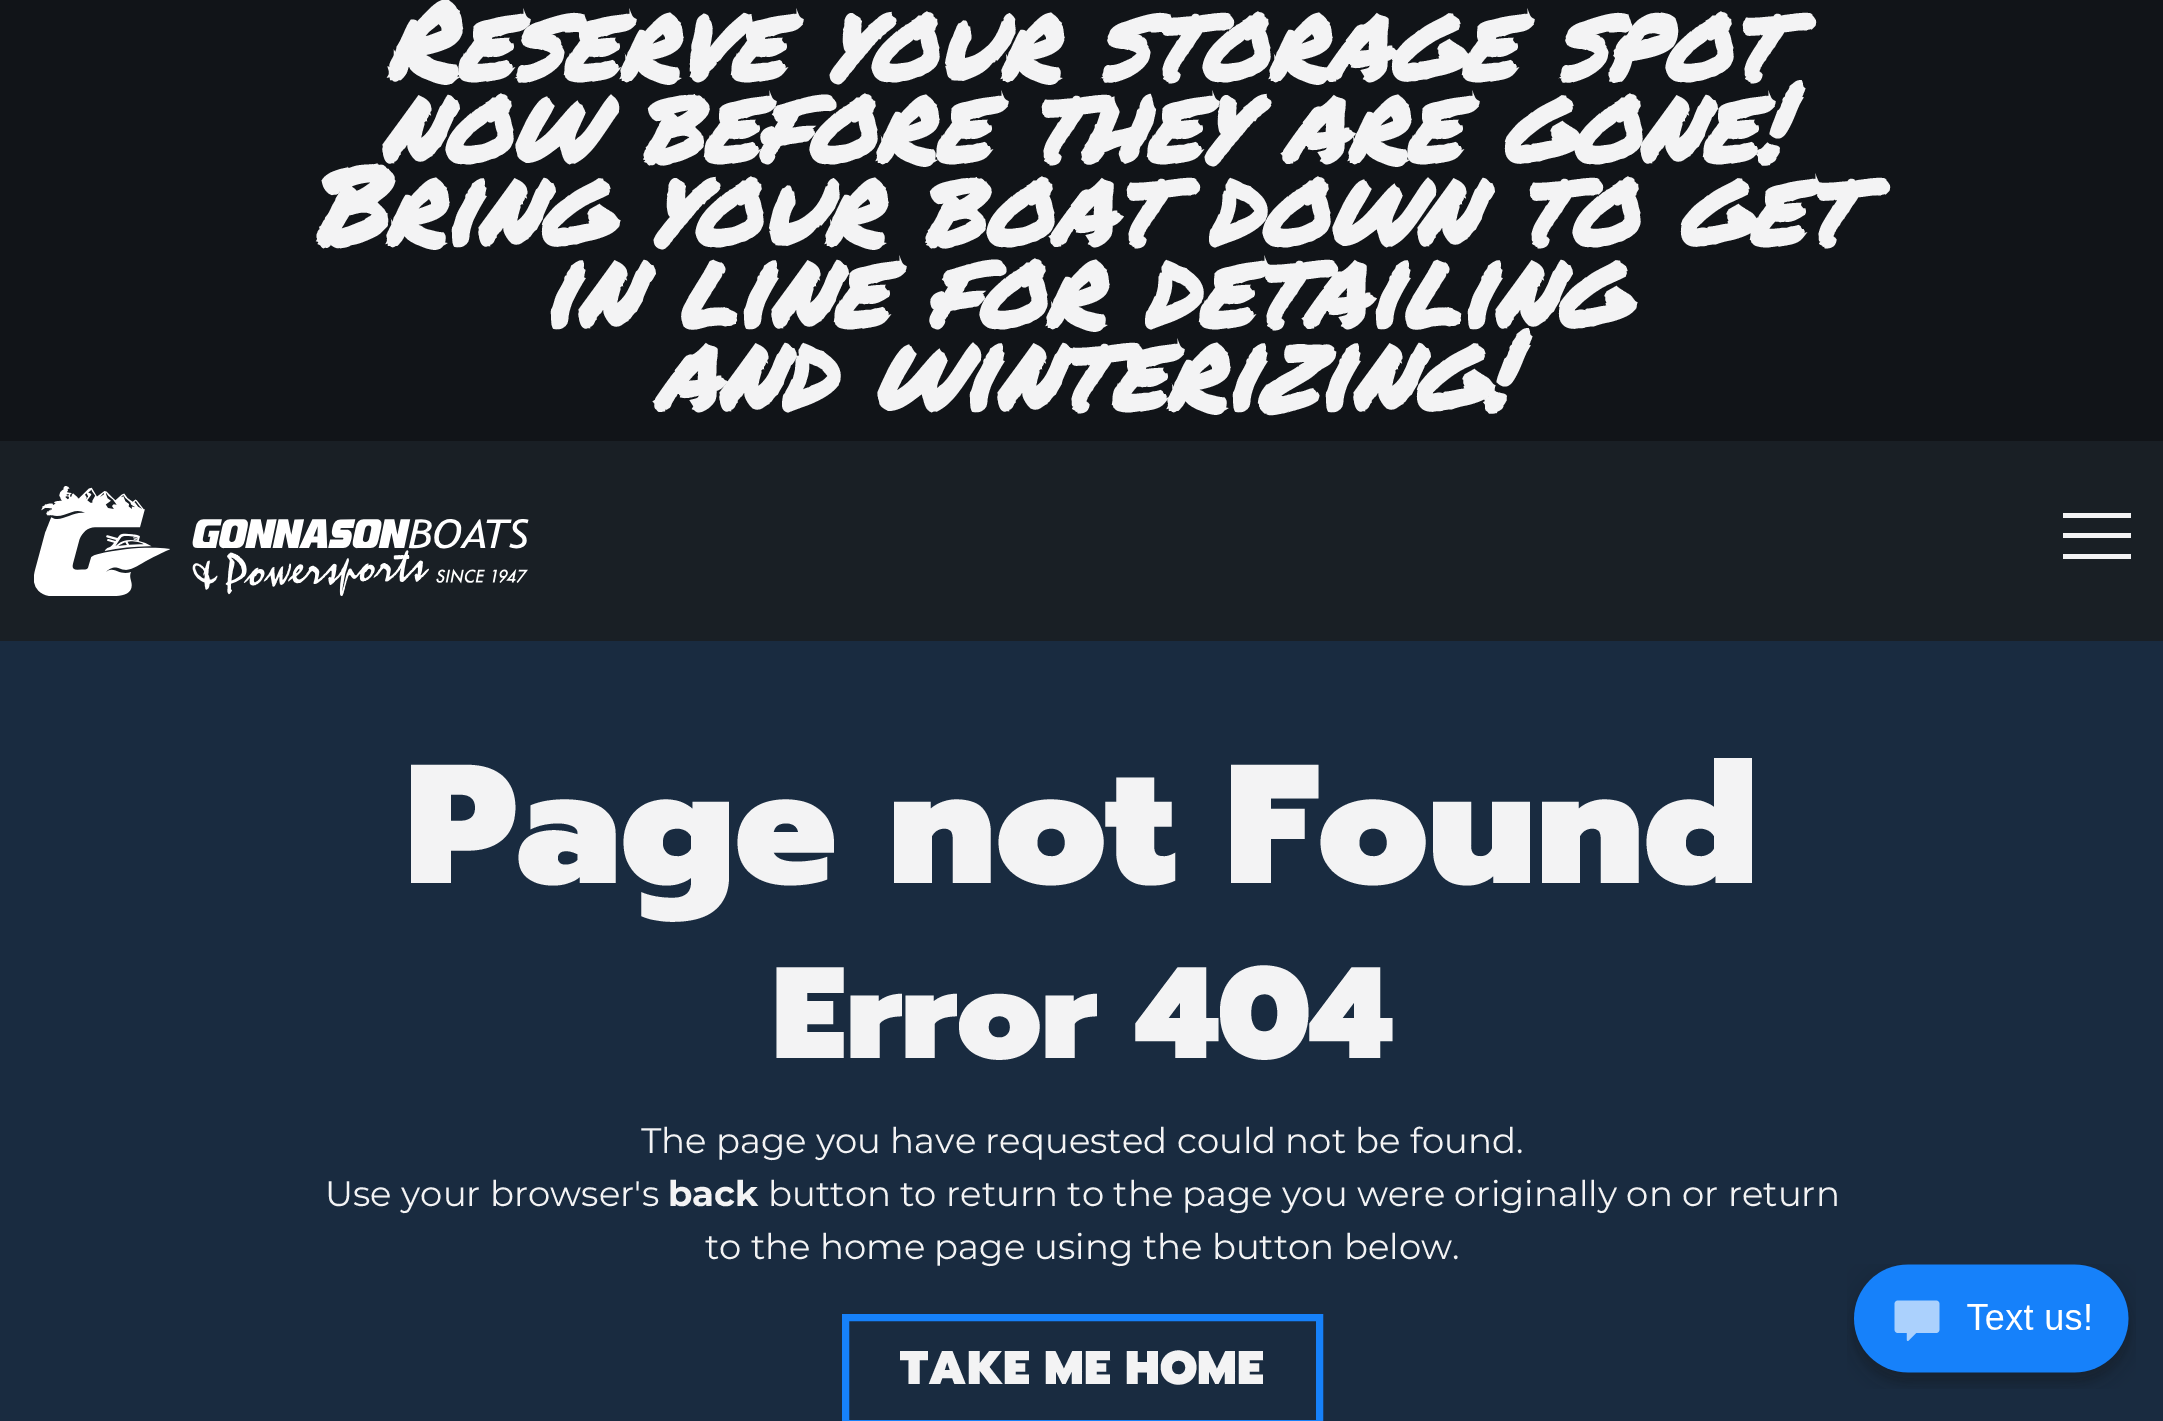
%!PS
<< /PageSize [2163 1421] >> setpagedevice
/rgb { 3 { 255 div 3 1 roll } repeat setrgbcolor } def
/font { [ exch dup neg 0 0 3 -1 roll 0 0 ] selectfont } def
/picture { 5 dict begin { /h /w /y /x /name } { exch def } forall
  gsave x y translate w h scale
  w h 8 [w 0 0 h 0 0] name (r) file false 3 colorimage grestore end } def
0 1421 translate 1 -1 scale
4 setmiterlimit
25 43 64 rgb
0 0 2163 1421 rectfill
17 20 24 rgb
0 0 2163 441 rectfill
25 31 37 rgb
0 441 2163 200 rectfill
(img/1.rgb) 34 486 495 110 picture
[
  [2063 533 68 5 243 243 244]
  [2063 513 68 5 243 243 244]
  [2063 554 68 5 243 243 244]
] { aload pop rgb rectfill } forall
22 129 250 rgb
7 setlinewidth
845.5 1317.5 474 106 rectstroke
(img/2.rgb) 1847 1264 289 125 picture
/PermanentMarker-BoldItalic 108 font
243 243 244 rgb
[
  [(Reserve your storage spot) 384 81]
  [(now before they are gone!) 380 163]
  [(Bring your boat down to get) 309 246]
  [(in line for detailing) 541 328]
  [(and winterizing!) 654 411]
] { aload pop moveto show } forall
/Prompt-Black 169.25 font
405 883 moveto (Page not Found) show
/Prompt-Black 130 font
772 1058 moveto (Error 404) show
/Montserrat-Regular 35.45 font
641 1153 moveto (The page you have requested could not be found.) show
325 1206 moveto (Use your browser's) show
/Montserrat-Bold 35.45 font
668 1206 moveto (back) show
/Montserrat-Regular 35.45 font
768 1206 moveto (button to return to the page you were originally on or return) show
705 1259 moveto (to the home page using the button below.) show
/Prompt-Black 47.25 font
900 1384 moveto (TAKE ME HOME) show
showpage
